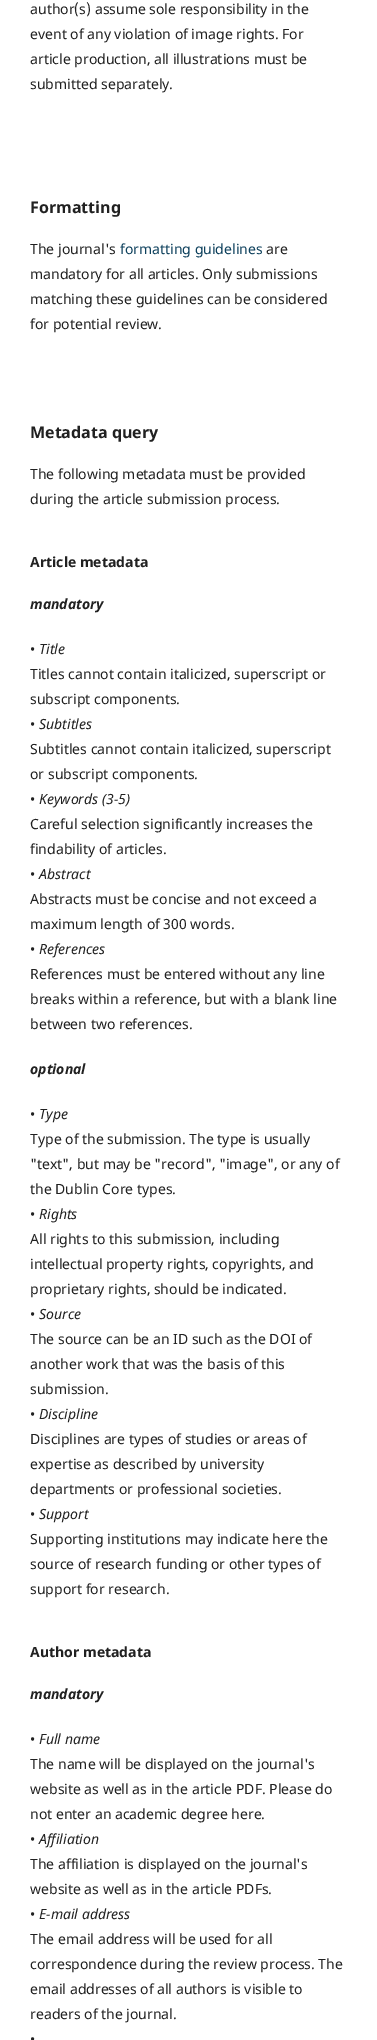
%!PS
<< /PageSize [377 2040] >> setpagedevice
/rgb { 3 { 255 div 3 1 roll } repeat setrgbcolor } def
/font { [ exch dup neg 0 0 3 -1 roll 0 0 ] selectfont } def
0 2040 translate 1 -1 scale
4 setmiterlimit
255 255 255 rgb
0 0 377 2040 rectfill
/NotoSans-Regular 14 font
33 33 33 rgb
[
  [(author\(s\) assume sole responsibility in the) 30 14]
  [(event of any violation of image rights. For) 30 39]
  [(article production, all illustrations must be) 30 64]
  [(submitted separately.) 30 89]
] { aload pop moveto show } forall
/NotoSans-Bold 16 font
30 213 moveto (Formatting) show
/NotoSans-Regular 14 font
30 254 moveto (The journal's) show
14 65 93 rgb
120 254 moveto (formatting guidelines) show
33 33 33 rgb
[
  [(are) 266 254]
  [(mandatory for all articles. Only submissions) 30 279]
  [(matching these guidelines can be considered) 30 304]
  [(for potential review.) 30 329]
] { aload pop moveto show } forall
/NotoSans-Bold 16 font
30 438 moveto (Metadata query) show
/NotoSans-Regular 14 font
30 479 moveto (The following metadata must be provided) show
30 504 moveto (during the article submission process.) show
/NotoSans-Bold 14 font
30 567 moveto (Article metadata) show
/NotoSans-BoldItalic 14 font
30 609 moveto (mandatory) show
/NotoSans-Regular 14 font
30 654 moveto (•) show
/NotoSans-Italic 14 font
39 654 moveto (Title) show
/NotoSans-Regular 14 font
[
  [(Titles cannot contain italicized, superscript or) 30 679]
  [(subscript components.) 30 704]
  [(•) 30 729]
] { aload pop moveto show } forall
/NotoSans-Italic 14 font
39 729 moveto (Subtitles) show
/NotoSans-Regular 14 font
[
  [(Subtitles cannot contain italicized, superscript) 30 754]
  [(or subscript components.) 30 779]
  [(•) 30 804]
] { aload pop moveto show } forall
/NotoSans-Italic 14 font
39 804 moveto (Keywords \(3-5\)) show
/NotoSans-Regular 14 font
[
  [(Careful selection significantly increases the) 30 829]
  [(findability of articles.) 30 854]
  [(•) 30 879]
] { aload pop moveto show } forall
/NotoSans-Italic 14 font
39 879 moveto (Abstract) show
/NotoSans-Regular 14 font
[
  [(Abstracts must be concise and not exceed a) 30 904]
  [(maximum length of 300 words.) 30 929]
  [(•) 30 954]
] { aload pop moveto show } forall
/NotoSans-Italic 14 font
39 954 moveto (References) show
/NotoSans-Regular 14 font
[
  [(References must be entered without any line) 30 979]
  [(breaks within a reference, but with a blank line) 30 1004]
  [(between two references.) 30 1029]
] { aload pop moveto show } forall
/NotoSans-BoldItalic 14 font
30 1074 moveto (optional) show
/NotoSans-Regular 14 font
30 1119 moveto (•) show
/NotoSans-Italic 14 font
39 1119 moveto (Type) show
/NotoSans-Regular 14 font
[
  [(Type of the submission. The type is usually) 30 1144]
  [("text", but may be "record", "image", or any of) 30 1169]
  [(the Dublin Core types.) 30 1194]
  [(•) 30 1219]
] { aload pop moveto show } forall
/NotoSans-Italic 14 font
39 1219 moveto (Rights) show
/NotoSans-Regular 14 font
[
  [(All rights to this submission, including) 30 1244]
  [(intellectual property rights, copyrights, and) 30 1269]
  [(proprietary rights, should be indicated.) 30 1294]
  [(•) 30 1319]
] { aload pop moveto show } forall
/NotoSans-Italic 14 font
39 1319 moveto (Source) show
/NotoSans-Regular 14 font
[
  [(The source can be an ID such as the DOI of) 30 1344]
  [(another work that was the basis of this) 30 1369]
  [(submission.) 30 1394]
  [(•) 30 1419]
] { aload pop moveto show } forall
/NotoSans-Italic 14 font
39 1419 moveto (Discipline) show
/NotoSans-Regular 14 font
[
  [(Disciplines are types of studies or areas of) 30 1444]
  [(expertise as described by university) 30 1469]
  [(departments or professional societies.) 30 1494]
  [(•) 30 1519]
] { aload pop moveto show } forall
/NotoSans-Italic 14 font
39 1519 moveto (Support) show
/NotoSans-Regular 14 font
[
  [(Supporting institutions may indicate here the) 30 1544]
  [(source of research funding or other types of) 30 1569]
  [(support for research.) 30 1594]
] { aload pop moveto show } forall
/NotoSans-Bold 14 font
30 1657 moveto (Author metadata) show
/NotoSans-BoldItalic 14 font
30 1699 moveto (mandatory) show
/NotoSans-Regular 14 font
30 1744 moveto (•) show
/NotoSans-Italic 14 font
39 1744 moveto (Full name) show
/NotoSans-Regular 14 font
[
  [(The name will be displayed on the journal's) 30 1769]
  [(website as well as in the article PDF. Please do) 30 1794]
  [(not enter an academic degree here.) 30 1819]
  [(•) 30 1844]
] { aload pop moveto show } forall
/NotoSans-Italic 14 font
39 1844 moveto (Affiliation) show
/NotoSans-Regular 14 font
[
  [(The affiliation is displayed on the journal's) 30 1869]
  [(website as well as in the article PDFs.) 30 1894]
  [(•) 30 1919]
] { aload pop moveto show } forall
/NotoSans-Italic 14 font
39 1919 moveto (E-mail address) show
/NotoSans-Regular 14 font
[
  [(The email address will be used for all) 30 1944]
  [(correspondence during the review process. The) 30 1969]
  [(email addresses of all authors is visible to) 30 1994]
  [(readers of the journal.) 30 2019]
  [(•) 30 2044]
] { aload pop moveto show } forall
showpage
